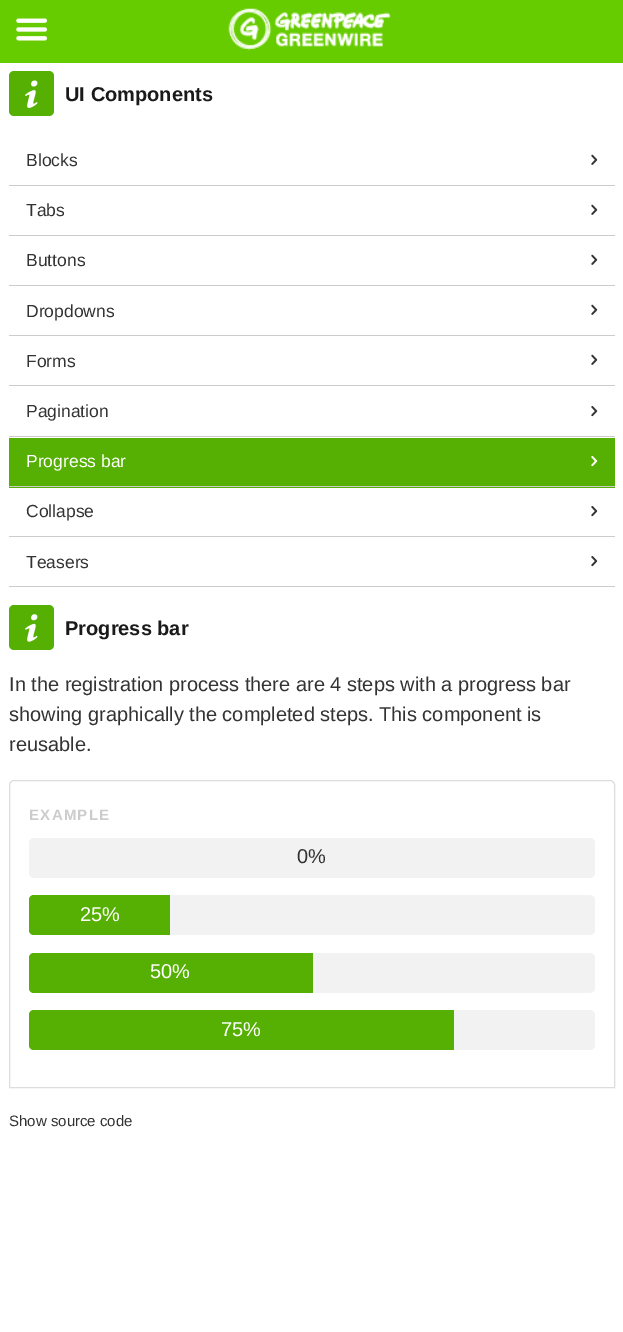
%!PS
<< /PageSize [623 1332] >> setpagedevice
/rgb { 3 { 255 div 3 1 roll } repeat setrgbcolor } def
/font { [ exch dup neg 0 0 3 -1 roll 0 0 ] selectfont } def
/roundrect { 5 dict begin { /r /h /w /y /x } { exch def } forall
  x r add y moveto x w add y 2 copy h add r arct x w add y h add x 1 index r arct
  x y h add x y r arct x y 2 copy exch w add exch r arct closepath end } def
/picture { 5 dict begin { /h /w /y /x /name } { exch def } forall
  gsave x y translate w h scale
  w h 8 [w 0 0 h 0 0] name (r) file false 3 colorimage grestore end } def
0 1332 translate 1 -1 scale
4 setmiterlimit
255 255 255 rgb
0 0 623 1332 rectfill
102 204 0 rgb
0 0 623 63 rectfill
(img/1.rgb) 16 18 31 23 picture
(img/2.rgb) 228 8 163 43 picture
86 176 4 rgb
9 71 45 45 5 roundrect fill
(img/3.rgb) 25 80 13 28 picture
204 204 204 rgb
9 185 606 1 rectfill
(img/4.rgb) 591 154 7 11 picture
9 235 606 1 rectfill
(img/4.rgb) 591 204 7 11 picture
9 285 606 1 rectfill
(img/4.rgb) 591 254 7 11 picture
9 335 606 1 rectfill
(img/4.rgb) 591 304 7 11 picture
9 385 606 1 rectfill
(img/4.rgb) 591 354 7 11 picture
9 436 606 1 rectfill
(img/5.rgb) 591 406 7 11 picture
86 176 4 rgb
9 438 606 50 rectfill
204 204 204 rgb
9 486 606 1 rectfill
(img/6.rgb) 591 456 7 11 picture
9 536 606 1 rectfill
(img/5.rgb) 591 506 7 11 picture
9 586 606 1 rectfill
(img/5.rgb) 591 556 7 11 picture
86 176 4 rgb
9 605 45 45 5 roundrect fill
(img/7.rgb) 25 614 13 28 picture
221 221 221 rgb
14 780.5 moveto 610 780.5 lineto 612.5 780.5 614.5 782.5 614.5 785 curveto 614.5 1087.5 lineto 9.5 1087.5 lineto 9.5 785 lineto 9.5 782.5 11.5 780.5 14 780.5 curveto closepath stroke
242 242 242 rgb
29 838 566 40 5 roundrect fill
29 895 566 40 5 roundrect fill
86 176 4 rgb
34 895 moveto 170 895 lineto 170 935 lineto 34 935 lineto 31 935 29 933 29 930 curveto 29 900 lineto 29 897 31 895 34 895 curveto closepath fill
242 242 242 rgb
29 953 566 40 5 roundrect fill
86 176 4 rgb
34 953 moveto 313 953 lineto 313 993 lineto 34 993 lineto 31 993 29 991 29 988 curveto 29 958 lineto 29 955 31 953 34 953 curveto closepath fill
242 242 242 rgb
29 1010 566 40 5 roundrect fill
86 176 4 rgb
34 1010 moveto 454 1010 lineto 454 1050 lineto 34 1050 lineto 31 1050 29 1048 29 1045 curveto 29 1015 lineto 29 1012 31 1010 34 1010 curveto closepath fill
/LiberationSans-Bold 20 font
26 26 26 rgb
65 101 moveto (UI Components) show
/LiberationSans-Regular 17.5 font
51 51 51 rgb
[
  [(Blocks) 26 166]
  [(Tabs) 26 216]
  [(Buttons) 26 266]
  [(Dropdowns) 26 317]
  [(Forms) 26 367]
  [(Pagination) 26 417]
] { aload pop moveto show } forall
255 255 255 rgb
26 467 moveto (Progress bar) show
51 51 51 rgb
26 517 moveto (Collapse) show
26 568 moveto (Teasers) show
/LiberationSans-Bold 20 font
26 26 26 rgb
65 635 moveto (Progress bar) show
/LiberationSans-Regular 20 font
51 51 51 rgb
[
  [(In the registration process there are 4 steps with a progress bar) 9 691]
  [(showing graphically the completed steps. This component is) 9 721]
  [(reusable.) 9 751]
] { aload pop moveto show } forall
/LiberationSans-Bold 15 font
204 204 204 rgb
29 820 moveto 1.25 0 (EXAMPLE) ashow
/LiberationSans-Regular 20 font
51 51 51 rgb
297 863 moveto (0%) show
255 255 255 rgb
[
  [(25%) 80 921]
  [(50%) 150 978]
  [(75%) 221 1036]
] { aload pop moveto show } forall
/LiberationSans-Regular 15 font
51 51 51 rgb
9 1126 moveto (Show source code) show
showpage
